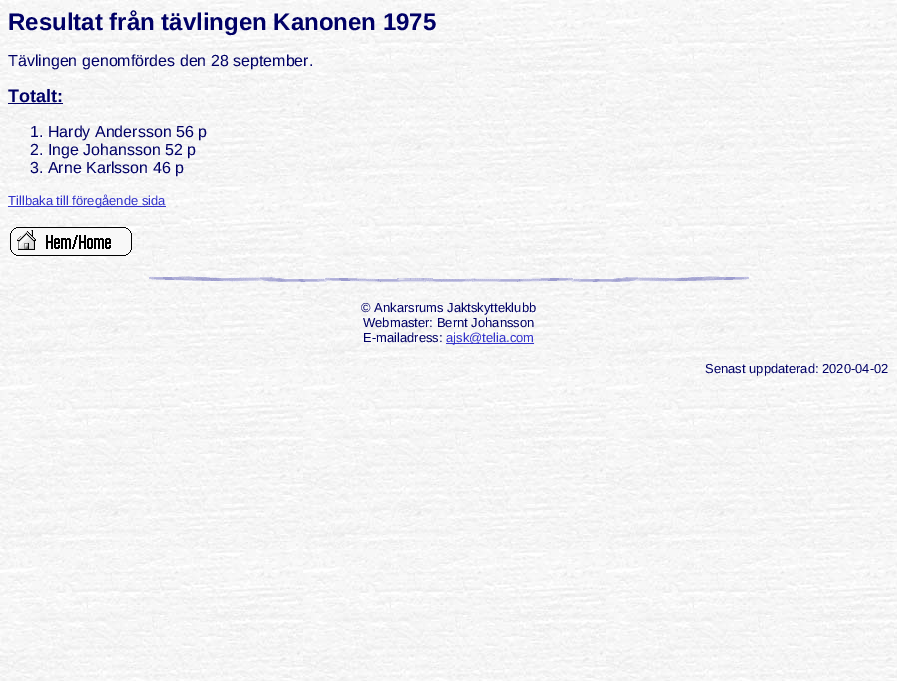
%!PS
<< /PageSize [897 681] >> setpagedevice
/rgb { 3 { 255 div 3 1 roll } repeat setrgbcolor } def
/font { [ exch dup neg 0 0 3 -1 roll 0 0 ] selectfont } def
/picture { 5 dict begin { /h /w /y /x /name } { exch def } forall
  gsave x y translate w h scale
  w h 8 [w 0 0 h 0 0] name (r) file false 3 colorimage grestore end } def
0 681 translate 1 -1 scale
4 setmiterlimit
255 255 255 rgb
0 0 897 681 rectfill
(img/1.rgb) 0 0 897 681 picture
0 0 102 rgb
8 103 55 1 rectfill
51 51 204 rgb
8 206 158 1 rectfill
(img/2.rgb) 10 227 122 29 picture
(img/3.rgb) 149 276 600 6 picture
446 343 88 1 rectfill
/LiberationSans-Bold 24 font
0 0 102 rgb
8 30 moveto (Resultat från tävlingen Kanonen 1975) show
/LiberationSans-Regular 16 font
8 66 moveto (Tävlingen genomfördes den 28 september.) show
/LiberationSans-Bold 18 font
8 102 moveto (Totalt:) show
/LiberationSans-Regular 16 font
[
  [(1. Hardy Andersson 56 p) 30 137]
  [(2. Inge Johansson 52 p) 30 155]
  [(3. Arne Karlsson 46 p) 30 173]
] { aload pop moveto show } forall
/LiberationSans-Regular 13 font
51 51 204 rgb
8 205 moveto (Tillbaka till föregående sida) show
0 0 102 rgb
[
  [(© Ankarsrums Jaktskytteklubb) 361 312]
  [(Webmaster: Bernt Johansson) 363 327]
  [(E-mailadress:) 363 342]
] { aload pop moveto show } forall
51 51 204 rgb
446 342 moveto (ajsk@telia.com) show
0 0 102 rgb
705 373 moveto (Senast uppdaterad: 2020-04-02) show
showpage
